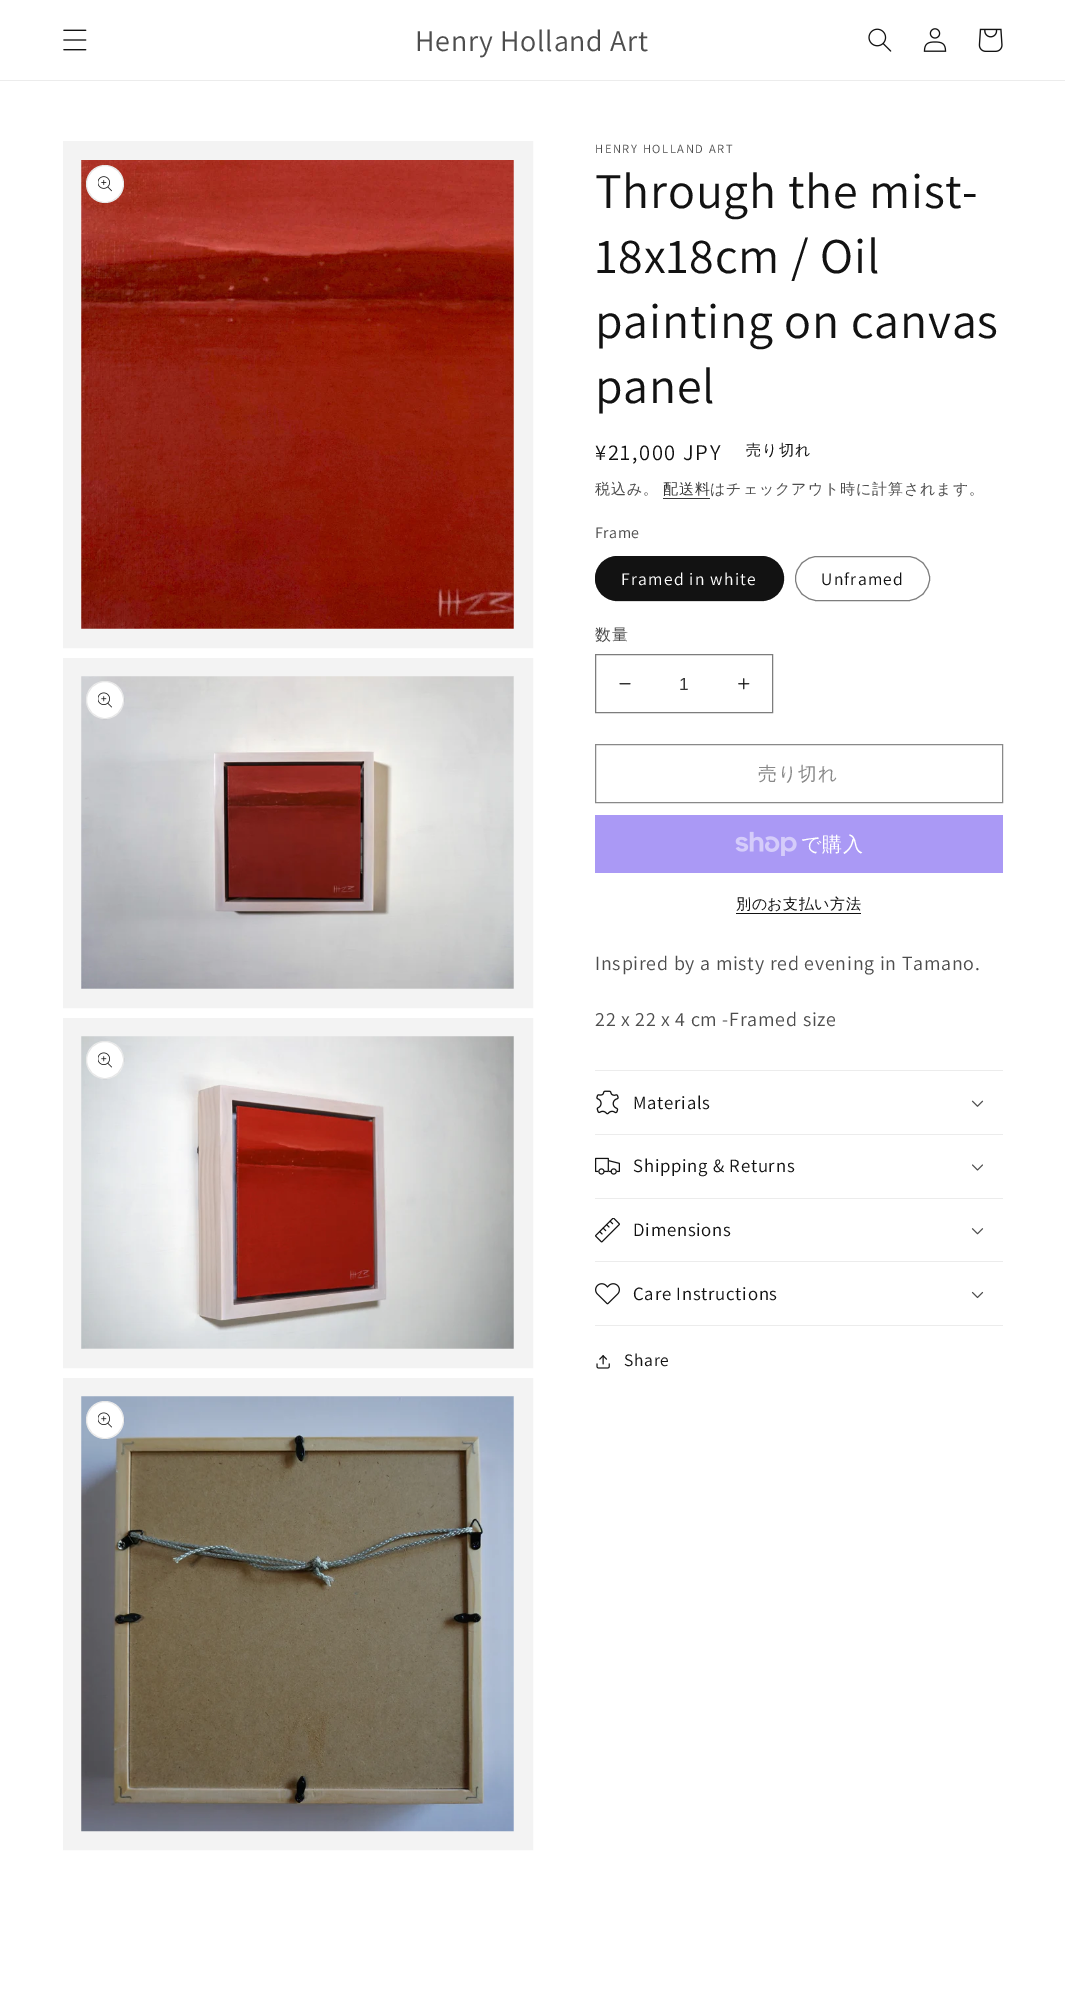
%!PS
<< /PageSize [1065 1991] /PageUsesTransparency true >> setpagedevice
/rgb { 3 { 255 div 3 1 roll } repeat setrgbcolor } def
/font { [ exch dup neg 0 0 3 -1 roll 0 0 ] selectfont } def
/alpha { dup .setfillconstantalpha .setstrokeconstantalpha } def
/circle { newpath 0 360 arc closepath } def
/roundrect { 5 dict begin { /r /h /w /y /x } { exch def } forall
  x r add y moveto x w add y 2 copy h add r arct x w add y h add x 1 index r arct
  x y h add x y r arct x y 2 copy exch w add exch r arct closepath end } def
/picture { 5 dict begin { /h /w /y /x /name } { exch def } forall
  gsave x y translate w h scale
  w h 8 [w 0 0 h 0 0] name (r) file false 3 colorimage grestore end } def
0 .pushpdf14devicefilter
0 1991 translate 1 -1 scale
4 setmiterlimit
255 255 255 rgb
0 0 1065 1991 rectfill
236 236 236 rgb
0 80 1065 1 rectfill
(img/1.rgb) 63 29 24 22 picture
(img/2.rgb) 868 28 24 24 picture
(img/3.rgb) 923 28 24 24 picture
(img/4.rgb) 978 28 25 24 picture
243 243 243 rgb
19 setlinewidth
72.5 150.5 451 488 rectstroke
(img/5.rgb) 81 160 433 469 picture
255 255 255 rgb
105 184 19 circle fill
0.1 alpha
18 18 18 rgb
1 setlinewidth
105 184 18.5 circle stroke
1 alpha
(img/6.rgb) 98 176 14 16 picture
243 243 243 rgb
19 setlinewidth
72.5 667.5 451 331 rectstroke
(img/7.rgb) 81 676 433 313 picture
255 255 255 rgb
105 700 19 circle fill
0.1 alpha
18 18 18 rgb
1 setlinewidth
105 700 18.5 circle stroke
1 alpha
(img/8.rgb) 98 692 14 16 picture
243 243 243 rgb
19 setlinewidth
72.5 1027.5 451 331 rectstroke
(img/9.rgb) 81 1036 433 313 picture
255 255 255 rgb
105 1060 19 circle fill
0.1 alpha
18 18 18 rgb
1 setlinewidth
105 1060 18.5 circle stroke
1 alpha
(img/8.rgb) 98 1052 14 16 picture
243 243 243 rgb
19 setlinewidth
72.5 1387.5 451 453 rectstroke
(img/10.rgb) 81 1396 433 436 picture
255 255 255 rgb
105 1420 19 circle fill
0.1 alpha
18 18 18 rgb
1 setlinewidth
105 1420 18.5 circle stroke
1 alpha
(img/8.rgb) 98 1412 14 16 picture
54 54 54 rgb
663 498 47 1 rectfill
18 18 18 rgb
595 556 189 45 22.5 roundrect fill
0.55 alpha
595.5 556.5 188 44 22 roundrect stroke
1 alpha
125 125 125 rgb
795.5 556.5 134 44 22 roundrect stroke
(img/11.rgb) 619 683 12 2 picture
(img/12.rgb) 738 678 12 12 picture
595.5 654.5 177 58 rectstroke
137 137 137 rgb
595.5 744.5 407 58 rectstroke
170 153 245 rgb
595 815 408 58 rectfill
(img/13.rgb) 735 831 62 25 picture
[
  [736 913 125 1 18 18 18]
  [595 1070 408 1 236 236 236]
  [595 1134 408 1 236 236 236]
] { aload pop rgb rectfill } forall
(img/14.rgb) 596 1090 23 25 picture
(img/15.rgb) 971 1100 13 7 picture
595 1198 408 1 rectfill
(img/16.rgb) 595 1157 25 18 picture
(img/17.rgb) 972 1164 11 7 picture
595 1261 408 1 rectfill
(img/18.rgb) 595 1218 25 25 picture
(img/19.rgb) 971 1228 13 7 picture
595 1325 408 1 rectfill
(img/20.rgb) 595 1283 25 22 picture
(img/21.rgb) 971 1291 13 8 picture
(img/22.rgb) 596 1355 14 14 picture
/Assistant-Regular 30 font
77 77 77 rgb
415 51 moveto 0.75 0 (Henry Holland Art) ashow
/Assistant-Regular 12.5 font
595 153 moveto 1.6 0 (HENRY HOLLAND ART) ashow
/Assistant-Regular 50 font
18 18 18 rgb
595 208 moveto 0.75 0 (Through the mist-) ashow
595 273 moveto 0.75 0 (18x18cm / Oil) ashow
595 338 moveto 0.75 0 (painting on canvas) ashow
595 403 moveto 0.75 0 (panel) ashow
/Assistant-Regular 22.5 font
595 460 moveto 1.6 0 (¥21,000 JPY) ashow
/WenQuanYiZenHei-Medium 15 font
746 455 moveto 1.25 0 (売り切れ) ashow
77 77 77 rgb
595 494 moveto 0.9 0 (税込み。) ashow
54 54 54 rgb
663 494 moveto 0.9 0 (配送料) ashow
77 77 77 rgb
710 494 moveto 0.9 0 (はチェックアウト時に計算されます。) ashow
/Assistant-Regular 16 font
595 538 moveto 0.5 0 (Frame) ashow
/Assistant-Regular 17.5 font
255 255 255 rgb
621 585 moveto 1.25 0 (Framed in white) ashow
18 18 18 rgb
821 585 moveto 1.25 0 (Unframed) ashow
/WenQuanYiZenHei-Medium 16 font
77 77 77 rgb
595 640 moveto 0.5 0 (数量) ashow
/LiberationSans-Regular 17.5 font
54 54 54 rgb
679 690 moveto (1) show
/WenQuanYiZenHei-Medium 18.75 font
137 137 137 rgb
758 780 moveto 1.25 0 (売り切れ) ashow
/WenQuanYiZenHei-Medium 20 font
255 255 255 rgb
801 851 moveto 0.75 0 (で購入) ashow
/WenQuanYiZenHei-Medium 15 font
18 18 18 rgb
736 909 moveto 0.5 0 (別のお支払い方法) ashow
/Assistant-Regular 20 font
77 77 77 rgb
595 970 moveto 0.75 0 (Inspired by a misty red evening in Tamano.) ashow
595 1026 moveto 0.75 0 (22 x 22 x 4 cm -Framed size) ashow
/Assistant-Regular 18.75 font
18 18 18 rgb
633 1109 moveto 0.75 0 (Materials) ashow
633 1172 moveto 0.75 0 (Shipping & Returns) ashow
633 1236 moveto 0.75 0 (Dimensions) ashow
633 1300 moveto 0.75 0 (Care Instructions) ashow
/Assistant-Regular 17.5 font
624 1366 moveto 0.75 0 (Share) ashow
.poppdf14devicefilter showpage
